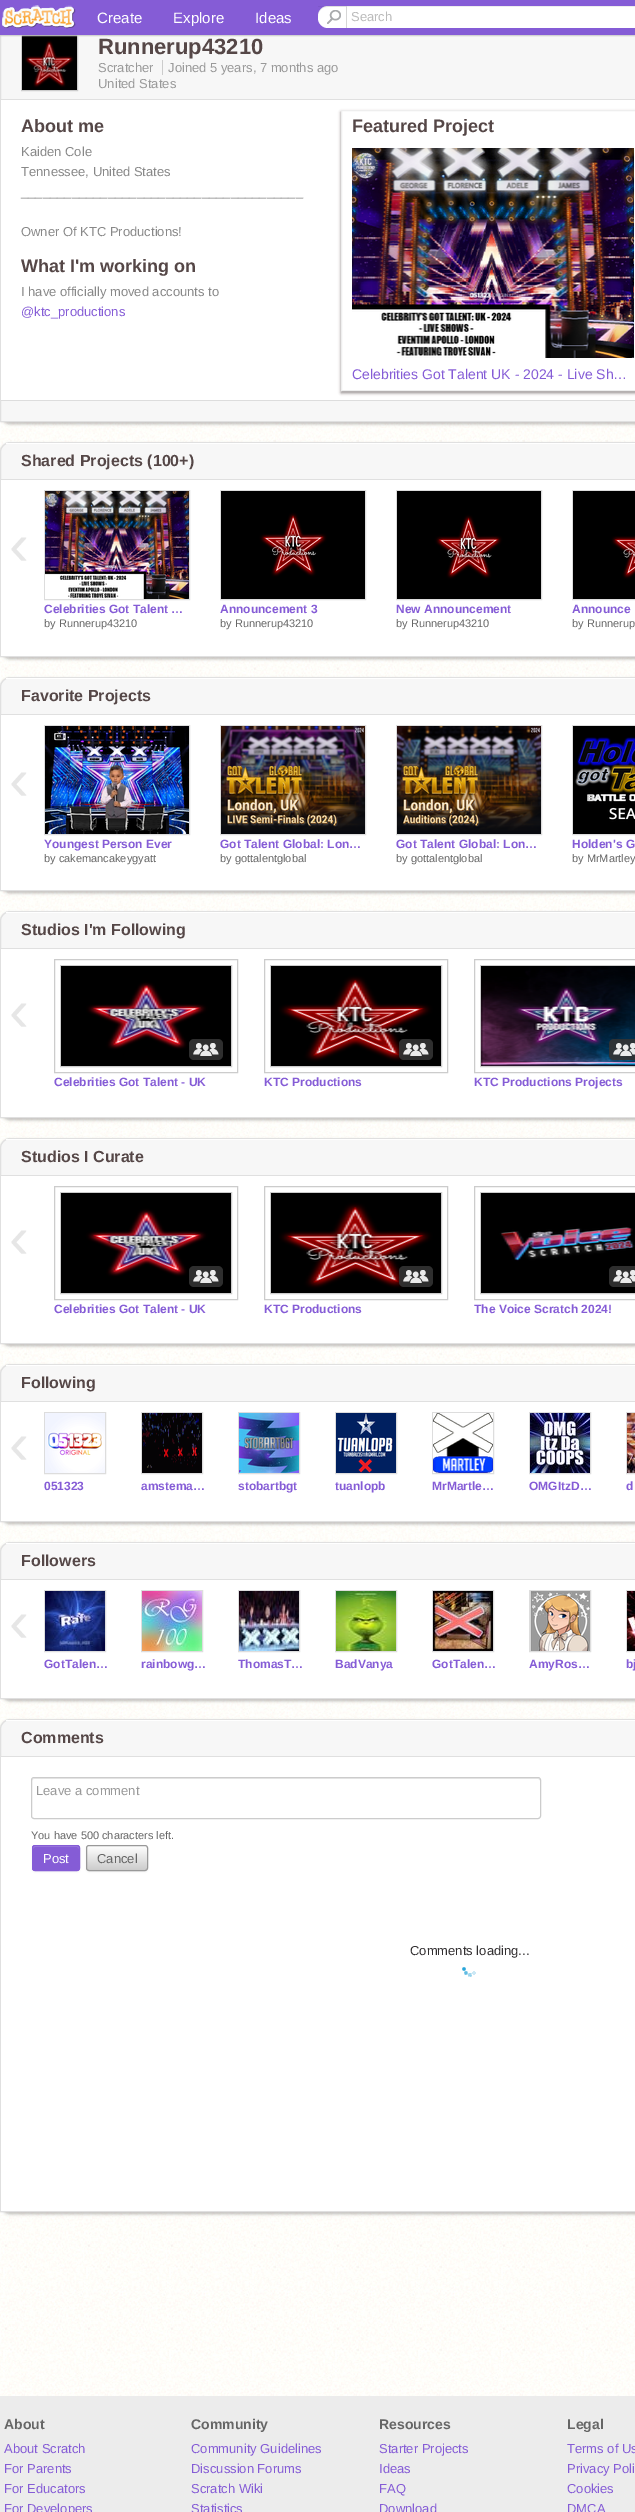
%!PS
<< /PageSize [635 2512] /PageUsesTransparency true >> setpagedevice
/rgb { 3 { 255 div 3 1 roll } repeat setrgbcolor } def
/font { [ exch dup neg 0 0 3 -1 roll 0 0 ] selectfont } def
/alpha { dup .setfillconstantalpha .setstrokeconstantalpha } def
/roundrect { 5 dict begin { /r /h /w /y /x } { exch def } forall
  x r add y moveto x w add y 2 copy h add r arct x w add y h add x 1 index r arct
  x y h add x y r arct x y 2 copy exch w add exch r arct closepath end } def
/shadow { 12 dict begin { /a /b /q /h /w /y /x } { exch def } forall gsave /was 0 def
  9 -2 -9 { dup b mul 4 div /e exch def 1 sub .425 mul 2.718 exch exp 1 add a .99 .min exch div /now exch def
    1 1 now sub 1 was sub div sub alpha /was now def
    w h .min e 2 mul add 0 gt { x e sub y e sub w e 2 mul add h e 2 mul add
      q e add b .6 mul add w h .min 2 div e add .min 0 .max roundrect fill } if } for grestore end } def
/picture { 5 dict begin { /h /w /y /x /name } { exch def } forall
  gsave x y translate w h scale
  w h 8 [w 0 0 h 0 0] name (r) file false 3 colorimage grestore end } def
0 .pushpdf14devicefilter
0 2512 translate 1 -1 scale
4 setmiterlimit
255 255 255 rgb
0 0 635 2512 rectfill
(img/1.rgb) 0 422 635 1974 picture
34 25 25 rgb
0 27 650 397 10 1.5 0.3 shadow
247 247 247 rgb
1 35 634 386 rectfill
224 224 224 rgb
0.5 25.5 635 396 rectstroke
204 204 204 rgb
21.5 34.5 56 56 rectstroke
(img/4.rgb) 22 35 55 55 picture
0 1 635 35 0 0.5 1 shadow
133 92 214 rgb
0 0 635 35 rectfill
(img/2.rgb) 2 5 74 25 picture
255 255 255 rgb
318 6 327 22 10 roundrect fill
0.07 alpha
0 0 0 rgb
328 7 moveto 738 7 lineto 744 7 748 11 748 17 curveto 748 16 lineto 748 10 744 6 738 6 curveto 328 6 lineto 322 6 318 10 318 16 curveto 318 17 lineto 318 11 322 7 328 7 curveto closepath fill
1 alpha
(img/3.rgb) 327 10 14 14 picture
0.06 alpha
[
  [318 6 28 1 0 0 0]
] { aload pop rgb rectfill } forall
0.8 alpha
[
  [346 6 1 22 204 204 204]
] { aload pop rgb rectfill } forall
1 alpha
[
  [162 60 1 15 204 204 204]
  [1 100 634 300 255 255 255]
  [1 99 634 1 224 224 224]
] { aload pop rgb rectfill } forall
gsave
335 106 moveto 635 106 lineto 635 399 lineto 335 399 lineto closepath 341 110 moveto 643 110 lineto 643 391 lineto 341 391 lineto closepath eoclip newpath
34 25 25 rgb
341 112 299 281 0 1.5 0.5 shadow
grestore
238 238 238 rgb
341.5 110.5 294 280 rectstroke
(img/5.rgb) 352 148 282 210 picture
221 221 221 rgb
1 400 634 1 rectfill
34 25 25 rgb
0 444 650 215 10 1.5 0.3 shadow
247 247 247 rgb
10 442.5 moveto 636 442.5 lineto 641 442.5 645.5 447 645.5 452 curveto 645.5 656.5 lineto 0.5 656.5 lineto 0.5 452 lineto 0.5 447 5 442.5 10 442.5 curveto closepath gsave fill grestore
224 224 224 rgb
stroke
[
  [6 443 629 1 255 255 255]
  [1 480 634 176 255 255 255]
  [1 479 634 1 224 224 224]
] { aload pop rgb rectfill } forall
221 221 221 rgb
44.5 490.5 145 109 rectstroke
(img/6.rgb) 45 491 144 108 picture
220.5 490.5 145 109 rectstroke
(img/7.rgb) 221 491 144 108 picture
396.5 490.5 145 109 rectstroke
(img/8.rgb) 397 491 144 108 picture
572.5 490.5 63 109 rectstroke
(img/9.rgb) 573 491 62 108 picture
34 25 25 rgb
0 679 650 214 10 1.5 0.3 shadow
247 247 247 rgb
10 677.5 moveto 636 677.5 lineto 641 677.5 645.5 682 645.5 687 curveto 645.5 890.5 lineto 0.5 890.5 lineto 0.5 687 lineto 0.5 682 5 677.5 10 677.5 curveto closepath gsave fill grestore
224 224 224 rgb
stroke
[
  [6 678 629 1 255 255 255]
  [1 715 634 175 255 255 255]
  [1 714 634 1 224 224 224]
] { aload pop rgb rectfill } forall
221 221 221 rgb
44.5 725.5 145 109 rectstroke
(img/10.rgb) 45 726 144 108 picture
220.5 725.5 145 109 rectstroke
(img/11.rgb) 221 726 144 108 picture
396.5 725.5 145 109 rectstroke
(img/12.rgb) 397 726 144 108 picture
572.5 725.5 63 109 rectstroke
(img/13.rgb) 573 726 62 108 picture
34 25 25 rgb
0 913 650 207 10 1.5 0.3 shadow
247 247 247 rgb
10 911.5 moveto 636 911.5 lineto 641 911.5 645.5 916 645.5 921 curveto 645.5 1117.5 lineto 0.5 1117.5 lineto 0.5 921 lineto 0.5 916 5 911.5 10 911.5 curveto closepath gsave fill grestore
224 224 224 rgb
stroke
[
  [6 912 629 1 255 255 255]
  [1 949 634 168 255 255 255]
  [1 948 634 1 224 224 224]
] { aload pop rgb rectfill } forall
204 204 204 rgb
54.5 959.5 183 113 rectstroke
60.5 965.5 171 101 rectstroke
(img/14.rgb) 61 966 170 100 picture
46 46 46 rgb
189 1039 34 21 5 roundrect fill
(img/15.rgb) 193 1043 26 13 picture
204 204 204 rgb
264.5 959.5 183 113 rectstroke
270.5 965.5 171 101 rectstroke
(img/16.rgb) 271 966 170 100 picture
0.9 alpha
51 51 51 rgb
399 1039 34 21 5 roundrect fill
1 alpha
(img/17.rgb) 403 1043 26 13 picture
204 204 204 rgb
474.5 959.5 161 113 rectstroke
480.5 965.5 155 101 rectstroke
(img/18.rgb) 481 966 154 100 picture
0.9 alpha
51 51 51 rgb
609 1039 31 21 5 roundrect fill
1 alpha
(img/19.rgb) 613 1043 22 13 picture
34 25 25 rgb
0 1140 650 206 10 1.5 0.3 shadow
247 247 247 rgb
10 1138.5 moveto 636 1138.5 lineto 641 1138.5 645.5 1143 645.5 1148 curveto 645.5 1343.5 lineto 0.5 1343.5 lineto 0.5 1148 lineto 0.5 1143 5 1138.5 10 1138.5 curveto closepath gsave fill grestore
224 224 224 rgb
stroke
[
  [6 1139 629 1 255 255 255]
  [1 1176 634 167 255 255 255]
  [1 1175 634 1 224 224 224]
] { aload pop rgb rectfill } forall
204 204 204 rgb
54.5 1186.5 183 113 rectstroke
60.5 1192.5 171 101 rectstroke
(img/14.rgb) 61 1193 170 100 picture
46 46 46 rgb
189 1266 34 21 5 roundrect fill
(img/15.rgb) 193 1270 26 13 picture
204 204 204 rgb
264.5 1186.5 183 113 rectstroke
270.5 1192.5 171 101 rectstroke
(img/16.rgb) 271 1193 170 100 picture
0.9 alpha
51 51 51 rgb
399 1266 34 21 5 roundrect fill
1 alpha
(img/17.rgb) 403 1270 26 13 picture
204 204 204 rgb
474.5 1186.5 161 113 rectstroke
480.5 1192.5 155 101 rectstroke
(img/20.rgb) 481 1193 154 100 picture
46 46 46 rgb
609 1266 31 21 5 roundrect fill
(img/21.rgb) 613 1270 22 13 picture
34 25 25 rgb
0 1366 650 158 10 1.5 0.3 shadow
247 247 247 rgb
10 1364.5 moveto 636 1364.5 lineto 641 1364.5 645.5 1369 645.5 1374 curveto 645.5 1521.5 lineto 0.5 1521.5 lineto 0.5 1374 lineto 0.5 1369 5 1364.5 10 1364.5 curveto closepath gsave fill grestore
224 224 224 rgb
stroke
[
  [6 1365 629 1 255 255 255]
  [1 1402 634 119 255 255 255]
  [1 1401 634 1 224 224 224]
] { aload pop rgb rectfill } forall
221 221 221 rgb
44.5 1412.5 61 61 rectstroke
(img/22.rgb) 45 1413 60 60 picture
141.5 1412.5 61 61 rectstroke
(img/23.rgb) 142 1413 60 60 picture
238.5 1412.5 61 61 rectstroke
(img/24.rgb) 239 1413 60 60 picture
335.5 1412.5 61 61 rectstroke
(img/25.rgb) 336 1413 60 60 picture
432.5 1412.5 61 61 rectstroke
(img/26.rgb) 433 1413 60 60 picture
529.5 1412.5 61 61 rectstroke
(img/27.rgb) 530 1413 60 60 picture
626.5 1412.5 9 61 rectstroke
(img/28.rgb) 627 1413 8 60 picture
34 25 25 rgb
0 1544 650 157 10 1.5 0.3 shadow
247 247 247 rgb
10 1542.5 moveto 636 1542.5 lineto 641 1542.5 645.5 1547 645.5 1552 curveto 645.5 1698.5 lineto 0.5 1698.5 lineto 0.5 1552 lineto 0.5 1547 5 1542.5 10 1542.5 curveto closepath gsave fill grestore
224 224 224 rgb
stroke
[
  [6 1543 629 1 255 255 255]
  [1 1580 634 118 255 255 255]
  [1 1579 634 1 224 224 224]
] { aload pop rgb rectfill } forall
221 221 221 rgb
44.5 1590.5 61 61 rectstroke
(img/29.rgb) 45 1591 60 60 picture
141.5 1590.5 61 61 rectstroke
(img/30.rgb) 142 1591 60 60 picture
238.5 1590.5 61 61 rectstroke
(img/31.rgb) 239 1591 60 60 picture
335.5 1590.5 61 61 rectstroke
(img/32.rgb) 336 1591 60 60 picture
432.5 1590.5 61 61 rectstroke
(img/33.rgb) 433 1591 60 60 picture
529.5 1590.5 61 61 rectstroke
(img/34.rgb) 530 1591 60 60 picture
626.5 1590.5 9 61 rectstroke
(img/35.rgb) 627 1591 8 60 picture
34 25 25 rgb
0 1721 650 493 10 1.5 0.3 shadow
247 247 247 rgb
10 1719.5 moveto 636 1719.5 lineto 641 1719.5 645.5 1724 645.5 1729 curveto 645.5 2211.5 lineto 0.5 2211.5 lineto 0.5 1729 lineto 0.5 1724 5 1719.5 10 1719.5 curveto closepath gsave fill grestore
224 224 224 rgb
stroke
[
  [6 1720 629 1 255 255 255]
  [1 1757 634 454 255 255 255]
  [1 1756 634 1 224 224 224]
] { aload pop rgb rectfill } forall
236 236 236 rgb
34 1779 moveto 538 1779 lineto 539 1779 540 1780 540 1781 curveto 540 1780 540 1778 538 1778 curveto 34 1778 lineto 32 1779 lineto 32 1781 lineto 32 1780 33 1779 34 1779 curveto closepath fill
204 204 204 rgb
31.5 1777.5 509 41 2.5 roundrect stroke
0 0 0 rgb
32 1846 48 26 3 1 0.05 shadow
133 92 214 rgb
32 1845 48 26 3 roundrect fill
157 125 222 rgb
35 1847 moveto 77 1847 lineto 78 1847 79 1848 79 1849 curveto 79 1844 74 1846 70 1846 curveto 42 1846 lineto 38 1846 33 1844 33 1849 curveto 33 1848 34 1847 35 1847 curveto closepath fill
133 92 214 rgb
32.5 1845.5 47 25 2.5 roundrect stroke
0 0 0 rgb
86 1846 62 26 3 1 0.05 shadow
gsave 87 1846 moveto 147 1846 lineto 147 1870 lineto 87 1870 lineto closepath clip newpath
<< /ShadingType 2 /ColorSpace /DeviceRGB /Coords [117 1846 117 1870] /Extend [true true] /Function << /FunctionType 2 /Domain [0 1] /C0 [1 1 1] /C1 [0.8 0.8 0.8] /N 1 >> >> shfill grestore
153 153 153 rgb
86.5 1845.5 61 25 2.5 roundrect stroke
(img/36.rgb) 462 1967 14 10 picture
236 236 236 rgb
0 2396 635 116 rectfill
/LiberationSans-Regular 15 font
255 255 255 rgb
[
  [(Create) 97 23]
  [(Explore) 173 23]
  [(Ideas) 255 23]
] { aload pop moveto show } forall
/LiberationSans-Regular 13 font
187 187 187 rgb
351 21 moveto (Search) show
/LiberationSans-Bold 22 font
85 71 71 rgb
98 54 moveto (Runnerup43210) show
/LiberationSans-Regular 13 font
153 153 153 rgb
[
  [(Scratcher) 98 72]
  [(Joined 5 years, 7 months ago) 168 72]
  [(United States) 98 88]
] { aload pop moveto show } forall
/LiberationSans-Bold 18 font
85 71 71 rgb
21 132 moveto (About me) show
/LiberationSans-Regular 13 font
136 136 136 rgb
[
  [(Kaiden Cole) 21 156]
  [(Tennessee, United States) 21 176]
  [(_______________________________________) 21 196]
  [(Owner Of KTC Productions!) 21 236]
] { aload pop moveto show } forall
/LiberationSans-Bold 18 font
85 71 71 rgb
21 272 moveto (What I'm working on) show
/LiberationSans-Regular 13 font
136 136 136 rgb
21 296 moveto (I have officially moved accounts to) show
133 92 214 rgb
21 316 moveto (@ktc_productions) show
/LiberationSans-Bold 18 font
85 71 71 rgb
352 132 moveto (Featured Project) show
/LiberationSans-Regular 14 font
133 92 214 rgb
352 379 moveto (Celebrities Got Talent UK - 2024 - Live Sh…) show
/LiberationSans-Bold 16 font
85 71 71 rgb
21 466 moveto (Shared Projects \(100+\)) show
/LiberationSans-Regular 60 font
230 230 230 rgb
9 565 moveto (‹) show
/LiberationSans-Bold 12 font
133 92 214 rgb
44 613 moveto (Celebrities Got Talent …) show
/LiberationSans-Regular 11 font
102 102 102 rgb
44 627 moveto (by Runnerup43210) show
/LiberationSans-Bold 12 font
133 92 214 rgb
220 613 moveto (Announcement 3) show
/LiberationSans-Regular 11 font
102 102 102 rgb
220 627 moveto (by Runnerup43210) show
/LiberationSans-Bold 12 font
133 92 214 rgb
396 613 moveto (New Announcement) show
/LiberationSans-Regular 11 font
102 102 102 rgb
396 627 moveto (by Runnerup43210) show
/LiberationSans-Bold 12 font
133 92 214 rgb
572 613 moveto (Announce) show
/LiberationSans-Regular 11 font
102 102 102 rgb
572 627 moveto (by Runnerup) show
/LiberationSans-Bold 16 font
85 71 71 rgb
21 701 moveto (Favorite Projects) show
/LiberationSans-Regular 60 font
230 230 230 rgb
9 800 moveto (‹) show
/LiberationSans-Bold 12 font
133 92 214 rgb
44 848 moveto (Youngest Person Ever) show
/LiberationSans-Regular 11 font
102 102 102 rgb
44 862 moveto (by cakemancakeygyatt) show
/LiberationSans-Bold 12 font
133 92 214 rgb
220 848 moveto (Got Talent Global: Lon…) show
/LiberationSans-Regular 11 font
102 102 102 rgb
220 862 moveto (by gottalentglobal) show
/LiberationSans-Bold 12 font
133 92 214 rgb
396 848 moveto (Got Talent Global: Lon…) show
/LiberationSans-Regular 11 font
102 102 102 rgb
396 862 moveto (by gottalentglobal) show
/LiberationSans-Bold 12 font
133 92 214 rgb
572 848 moveto (Holden's G) show
/LiberationSans-Regular 11 font
102 102 102 rgb
572 862 moveto (by MrMartley) show
/LiberationSans-Bold 16 font
85 71 71 rgb
21 935 moveto (Studios I'm Following) show
/LiberationSans-Regular 60 font
230 230 230 rgb
9 1031 moveto (‹) show
/LiberationSans-Bold 12 font
133 92 214 rgb
[
  [(Celebrities Got Talent - UK) 54 1086]
  [(KTC Productions) 264 1086]
  [(KTC Productions Projects) 474 1086]
] { aload pop moveto show } forall
/LiberationSans-Bold 16 font
85 71 71 rgb
21 1162 moveto (Studios I Curate) show
/LiberationSans-Regular 60 font
230 230 230 rgb
9 1258 moveto (‹) show
/LiberationSans-Bold 12 font
133 92 214 rgb
[
  [(Celebrities Got Talent - UK) 54 1313]
  [(KTC Productions) 264 1313]
  [(The Voice Scratch 2024!) 474 1313]
] { aload pop moveto show } forall
/LiberationSans-Bold 16 font
85 71 71 rgb
21 1388 moveto (Following) show
/LiberationSans-Regular 60 font
230 230 230 rgb
9 1464 moveto (‹) show
/LiberationSans-Bold 12 font
133 92 214 rgb
[
  [(051323) 44 1490]
  [(amstema…) 141 1490]
  [(stobartbgt) 238 1490]
  [(tuanlopb) 335 1490]
  [(MrMartle…) 432 1490]
  [(OMGItzD…) 529 1490]
  [(d) 626 1490]
] { aload pop moveto show } forall
/LiberationSans-Bold 16 font
85 71 71 rgb
21 1566 moveto (Followers) show
/LiberationSans-Regular 60 font
230 230 230 rgb
9 1642 moveto (‹) show
/LiberationSans-Bold 12 font
133 92 214 rgb
[
  [(GotTalen…) 44 1668]
  [(rainbowg…) 141 1668]
  [(ThomasT…) 238 1668]
  [(BadVanya) 335 1668]
  [(GotTalen…) 432 1668]
  [(AmyRos…) 529 1668]
  [(bj) 626 1668]
] { aload pop moveto show } forall
/LiberationSans-Bold 16 font
85 71 71 rgb
21 1743 moveto (Comments) show
/LiberationSans-Regular 13 font
153 153 153 rgb
36 1795 moveto (Leave a comment) show
/LiberationSans-Regular 11 font
102 102 102 rgb
31 1839 moveto (You have 500 characters left.) show
/LiberationSans-Regular 13 font
255 255 255 rgb
43 1863 moveto (Post) show
102 102 102 rgb
97 1863 moveto (Cancel) show
50 47 49 rgb
410 1955 moveto (Comments loading...) show
/LiberationSans-Bold 14 font
102 102 102 rgb
4 2429 moveto (About) show
/LiberationSans-Regular 13 font
133 92 214 rgb
[
  [(About Scratch) 4 2453]
  [(For Parents) 4 2473]
  [(For Educators) 4 2493]
  [(For Developers) 4 2513]
] { aload pop moveto show } forall
/LiberationSans-Bold 14 font
102 102 102 rgb
191 2429 moveto (Community) show
/LiberationSans-Regular 13 font
133 92 214 rgb
[
  [(Community Guidelines) 191 2453]
  [(Discussion Forums) 191 2473]
  [(Scratch Wiki) 191 2493]
  [(Statistics) 191 2513]
] { aload pop moveto show } forall
/LiberationSans-Bold 14 font
102 102 102 rgb
379 2429 moveto (Resources) show
/LiberationSans-Regular 13 font
133 92 214 rgb
[
  [(Starter Projects) 379 2453]
  [(Ideas) 379 2473]
  [(FAQ) 379 2493]
  [(Download) 379 2513]
] { aload pop moveto show } forall
/LiberationSans-Bold 14 font
102 102 102 rgb
567 2429 moveto (Legal) show
/LiberationSans-Regular 13 font
133 92 214 rgb
[
  [(Terms of Us) 567 2453]
  [(Privacy Poli) 567 2473]
  [(Cookies) 567 2493]
  [(DMCA) 567 2513]
] { aload pop moveto show } forall
.poppdf14devicefilter showpage
